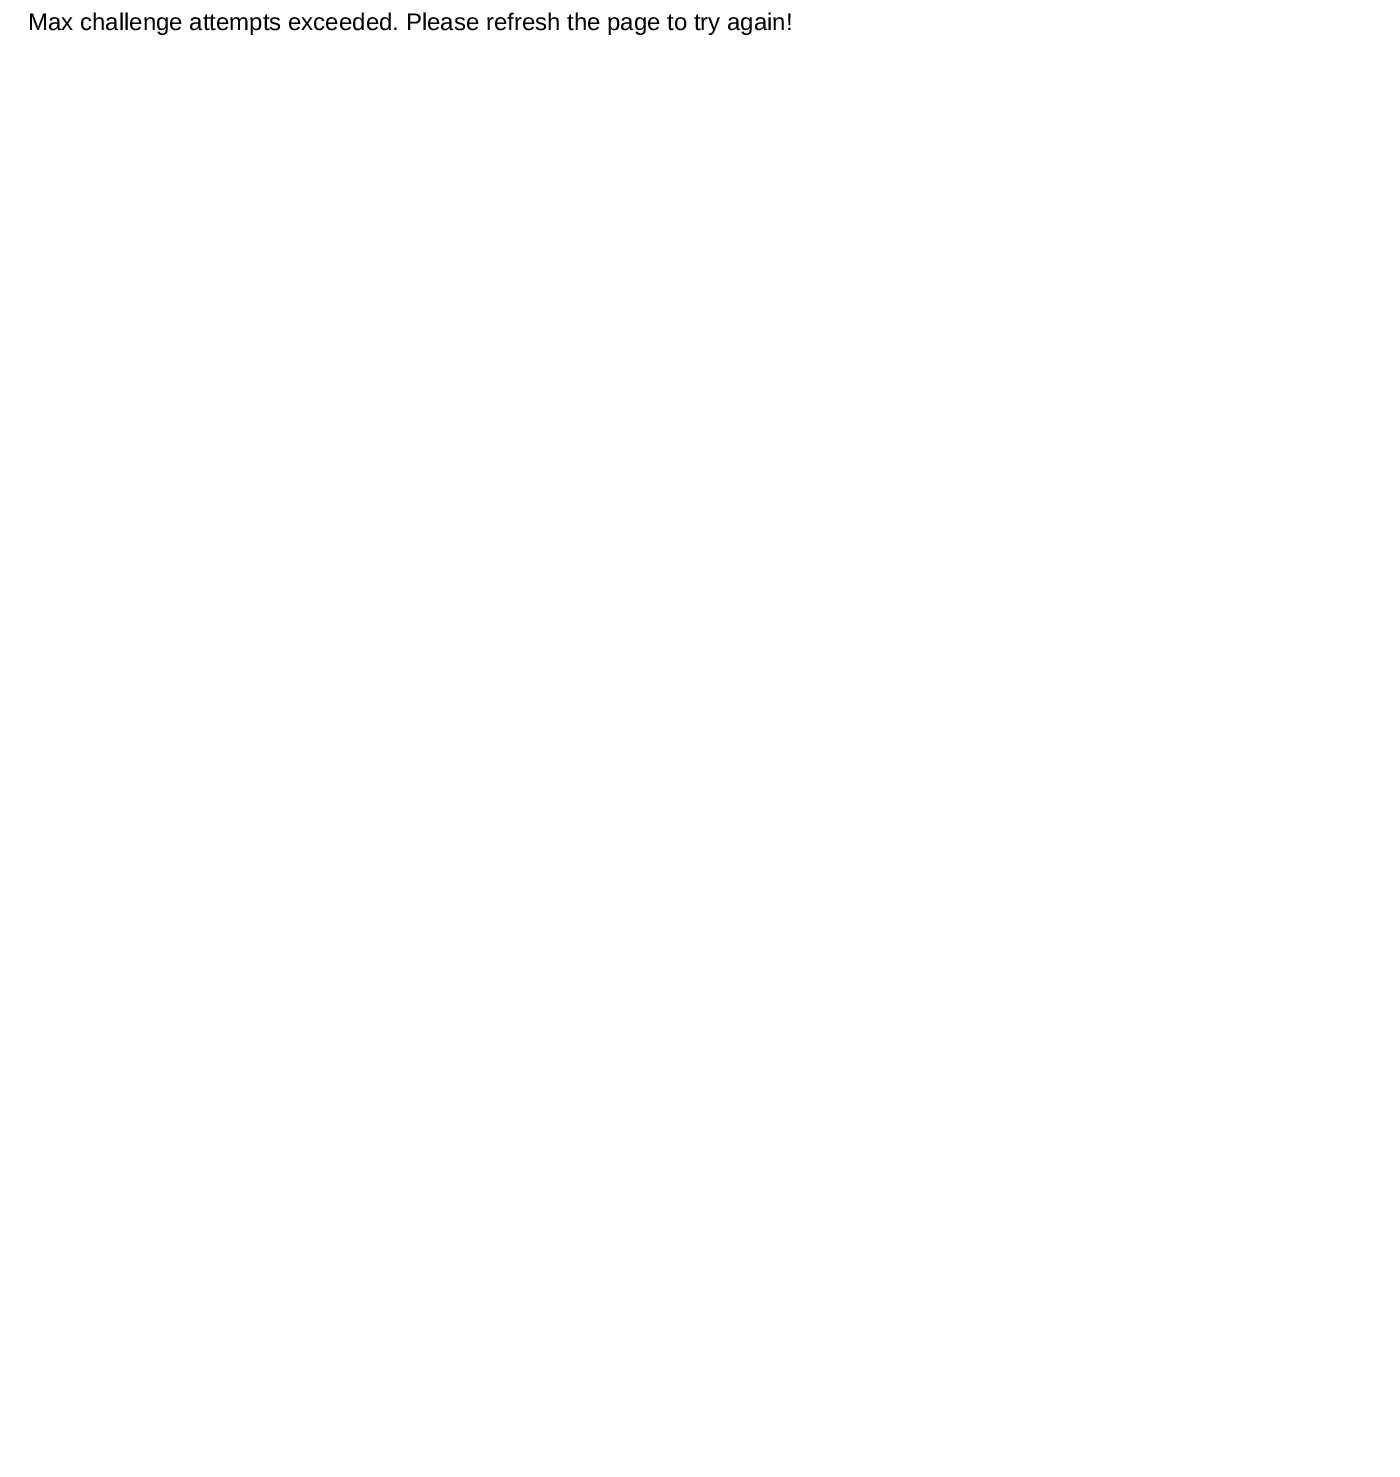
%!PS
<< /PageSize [1400 1477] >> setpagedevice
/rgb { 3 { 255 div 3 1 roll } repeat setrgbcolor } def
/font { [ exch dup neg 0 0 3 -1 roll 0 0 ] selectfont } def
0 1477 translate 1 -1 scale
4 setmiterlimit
255 255 255 rgb
0 0 1400 1477 rectfill
/LiberationSans-Regular 24 font
0 0 0 rgb
28 30 moveto (Max challenge attempts exceeded. Please refresh the page to try again!) show
showpage
